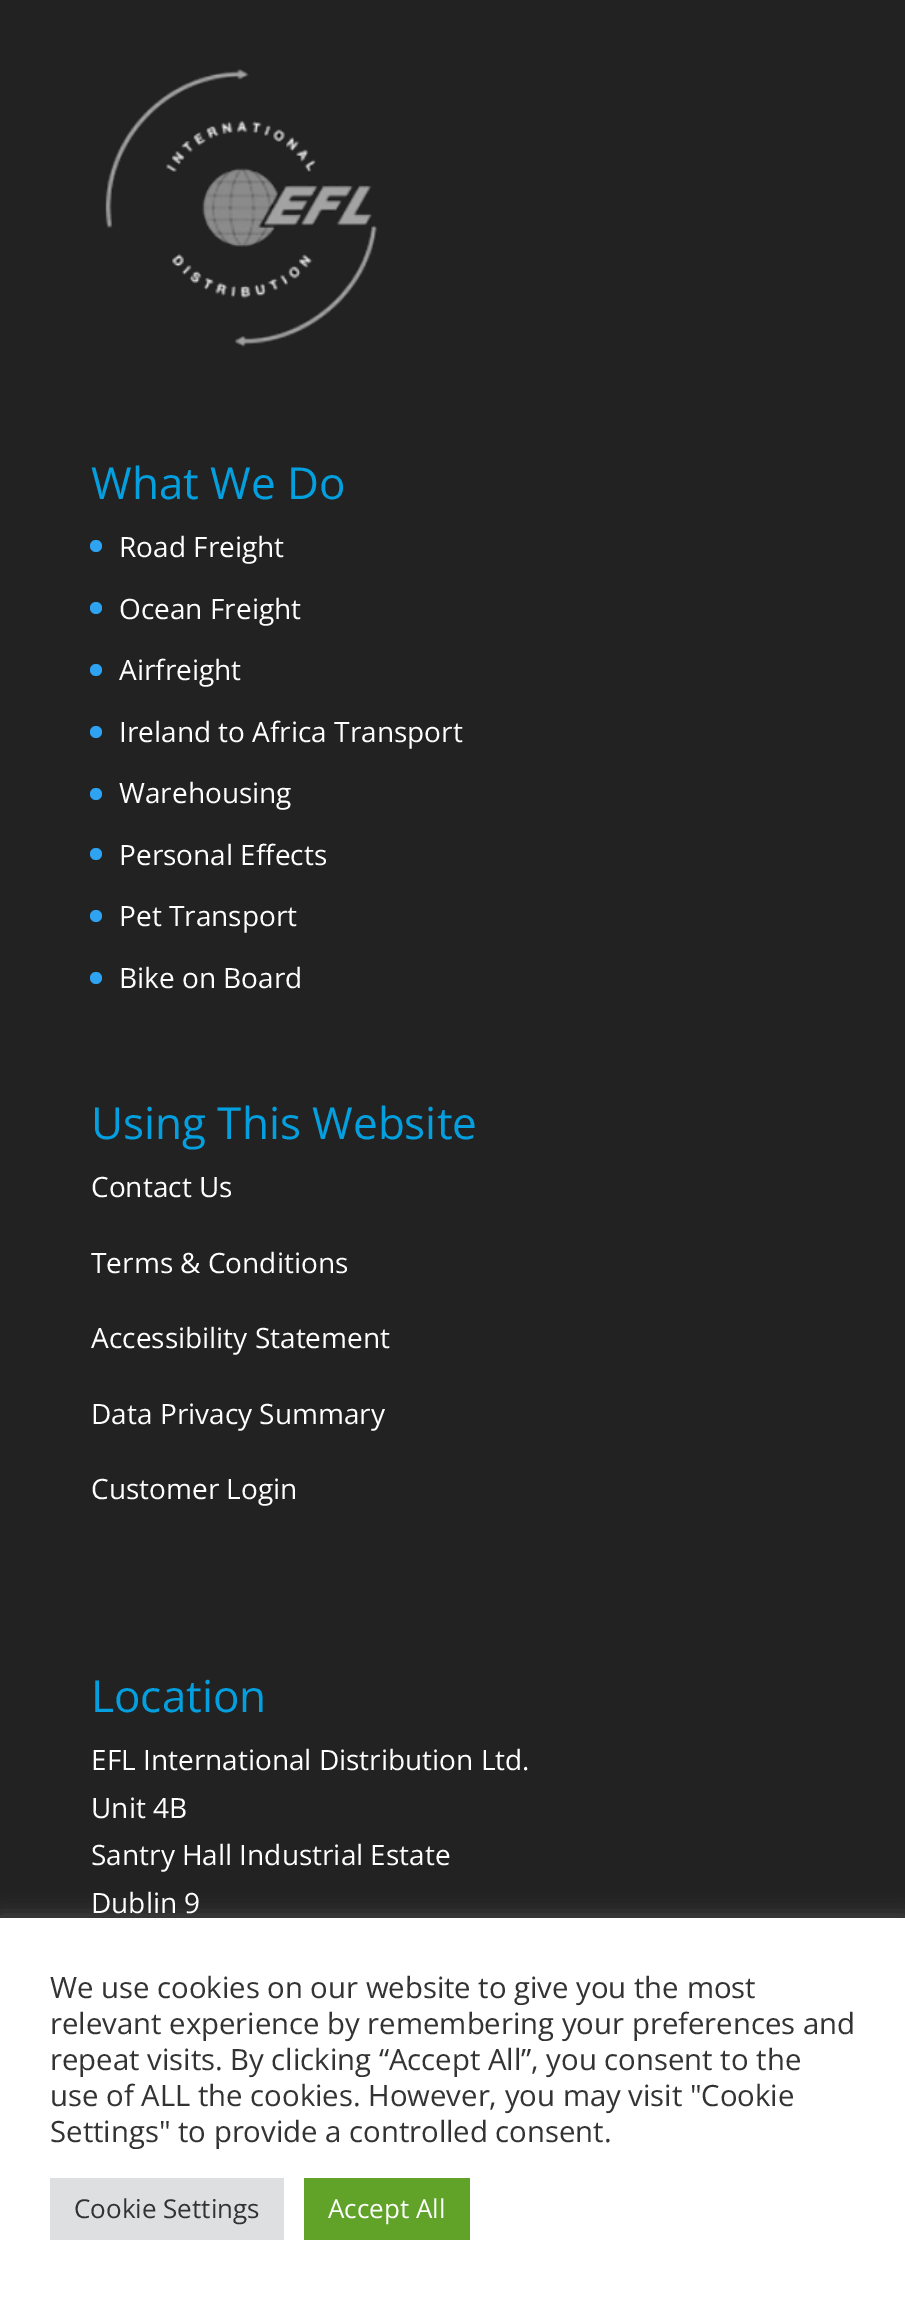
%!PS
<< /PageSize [905 2299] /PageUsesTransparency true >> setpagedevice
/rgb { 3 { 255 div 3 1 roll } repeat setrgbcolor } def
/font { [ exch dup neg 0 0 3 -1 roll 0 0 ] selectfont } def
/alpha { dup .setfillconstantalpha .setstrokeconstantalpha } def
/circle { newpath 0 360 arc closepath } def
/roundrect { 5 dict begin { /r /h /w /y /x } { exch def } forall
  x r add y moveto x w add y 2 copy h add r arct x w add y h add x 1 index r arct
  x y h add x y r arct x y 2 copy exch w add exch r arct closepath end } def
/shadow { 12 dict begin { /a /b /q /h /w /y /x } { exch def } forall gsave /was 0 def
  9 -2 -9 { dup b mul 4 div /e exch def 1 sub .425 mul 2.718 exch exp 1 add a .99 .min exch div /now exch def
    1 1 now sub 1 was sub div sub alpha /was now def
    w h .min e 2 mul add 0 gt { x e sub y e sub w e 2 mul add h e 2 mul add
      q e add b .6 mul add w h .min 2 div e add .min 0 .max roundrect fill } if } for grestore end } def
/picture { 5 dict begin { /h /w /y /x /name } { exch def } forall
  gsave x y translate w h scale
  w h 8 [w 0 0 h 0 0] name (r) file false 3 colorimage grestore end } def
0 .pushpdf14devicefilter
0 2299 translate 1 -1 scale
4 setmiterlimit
34 34 34 rgb
0 0 905 2299 rectfill
(img/1.rgb) 105 69 273 278 picture
46 163 242 rgb
96 546 6 circle fill
96 608 6 circle fill
96 670 6 circle fill
96 732 6 circle fill
96 794 6 circle fill
96 854 6 circle fill
96 916 6 circle fill
96 978 6 circle fill
172 171 171 rgb
0 1916 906 382 0 10 0.3 shadow
[
  [0 1918 905 381 255 255 255]
  [50 2178 234 62 222 223 224]
  [304 2178 166 62 97 162 41]
] { aload pop rgb rectfill } forall
/OpenSans-Regular 44 font
3 159 222 rgb
91 499 moveto (What We Do) show
/OpenSans-Regular 28 font
255 255 255 rgb
[
  [(Road Freight) 119 557]
  [(Ocean Freight) 119 619]
  [(Airfreight) 119 680]
  [(Ireland to Africa Transport) 119 742]
  [(Warehousing) 119 803]
  [(Personal Effects) 119 865]
  [(Pet Transport) 119 926]
  [(Bike on Board) 119 988]
] { aload pop moveto show } forall
/OpenSans-Regular 44 font
3 159 222 rgb
91 1139 moveto (Using This Website) show
/OpenSans-Regular 28 font
255 255 255 rgb
[
  [(Contact Us) 91 1197]
  [(Terms & Conditions) 91 1273]
  [(Accessibility Statement) 91 1348]
  [(Data Privacy Summary) 91 1424]
  [(Customer Login) 91 1499]
] { aload pop moveto show } forall
/OpenSans-Regular 44 font
3 159 222 rgb
91 1712 moveto (Location) show
/OpenSans-Regular 28 font
255 255 255 rgb
[
  [(EFL International Distribution Ltd.) 91 1770]
  [(Unit 4B) 91 1818]
  [(Santry Hall Industrial Estate) 91 1865]
  [(Dublin 9) 91 1913]
] { aload pop moveto show } forall
/OpenSans-Regular 29.3 font
51 51 51 rgb
[
  [(We use cookies on our website to give you the most) 50 1998]
  [(relevant experience by remembering your preferences and) 50 2034]
  [(repeat visits. By clicking “Accept All”, you consent to the) 50 2070]
  [(use of ALL the cookies. However, you may visit "Cookie) 50 2106]
  [(Settings" to provide a controlled consent.) 50 2142]
] { aload pop moveto show } forall
/OpenSans-Regular 26 font
74 2218 moveto (Cookie Settings) show
255 255 255 rgb
328 2218 moveto (Accept All) show
.poppdf14devicefilter showpage
